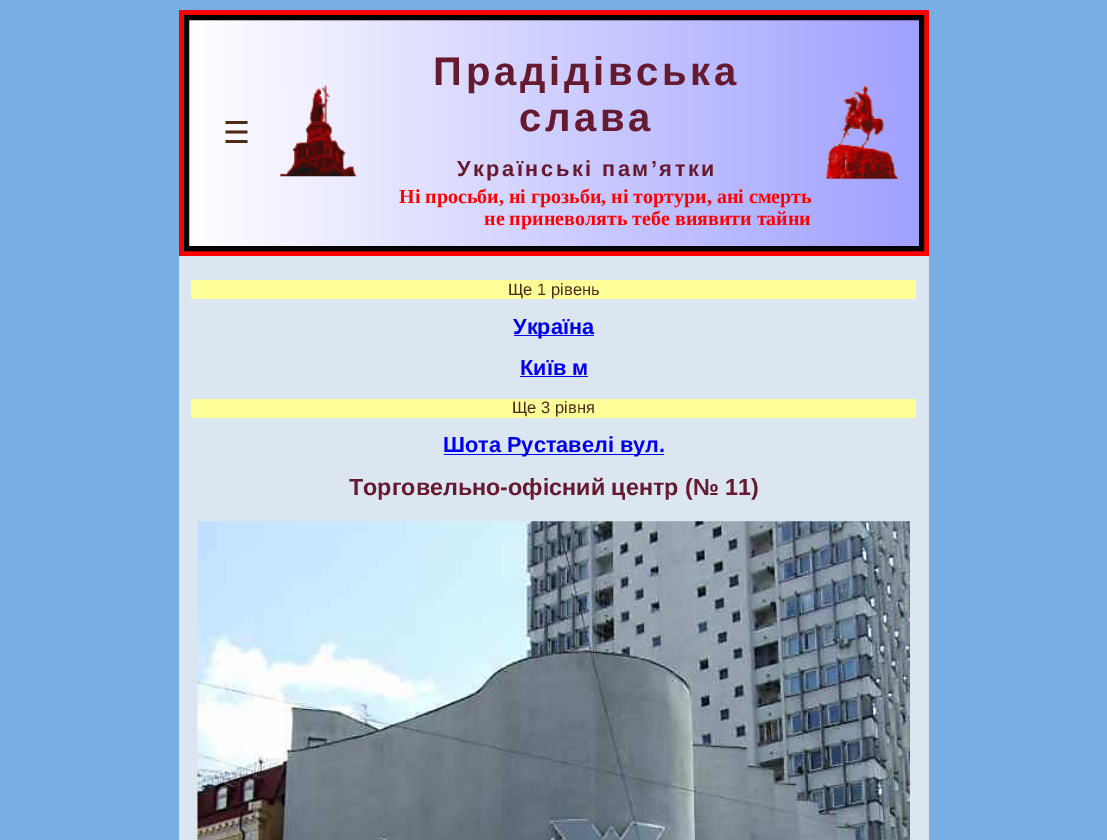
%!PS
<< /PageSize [1107 840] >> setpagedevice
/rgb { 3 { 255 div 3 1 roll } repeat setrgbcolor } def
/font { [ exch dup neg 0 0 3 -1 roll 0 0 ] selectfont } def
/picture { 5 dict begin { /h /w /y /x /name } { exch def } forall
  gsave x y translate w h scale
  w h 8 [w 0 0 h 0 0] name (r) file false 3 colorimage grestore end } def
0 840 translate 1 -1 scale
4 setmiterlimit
119 174 228 rgb
0 0 1107 840 rectfill
255 0 0 rgb
179 10 750 246 rectfill
gsave 189 20 moveto 919 20 lineto 919 246 lineto 189 246 lineto closepath clip newpath
<< /ShadingType 2 /ColorSpace /DeviceRGB /Coords [189 133 919 133] /Extend [true true] /Function << /FunctionType 2 /Domain [0 1] /C0 [1 1 1] /C1 [0.627 0.627 1] /N 1 >> >> shfill grestore
0 0 0 rgb
5 setlinewidth
186.5 17.5 735 231 rectstroke
(img/1.rgb) 280 85 77 92 picture
(img/2.rgb) 826 84 73 95 picture
[
  [179 256 750 584 220 230 240]
  [191 280 725 19 255 255 153]
  [514 335 80 1 0 0 238]
  [520 376 68 1 0 0 238]
  [191 399 725 19 255 255 153]
  [444 454 220 1 0 0 238]
] { aload pop rgb rectfill } forall
(img/3.rgb) 197 521 713 319 picture
/DejaVuSans-Regular 30 font
80 40 26 rgb
223 143 moveto (☰) show
/LiberationSans-Bold 40 font
102 26 48 rgb
433 85 moveto 3.75 0 (Прадідівська) ashow
519 131 moveto 3.75 0 (слава) ashow
/LiberationSans-Bold 21.75 font
457 176 moveto 2.5 0 (Українські пам’ятки) ashow
/LiberationSerif-Bold 20 font
255 0 0 rgb
399 203 moveto (Ні просьби, ні грозьби, ні тортури, ані смерть) show
484 225 moveto (не приневолять тебе виявити тайни) show
/LiberationSans-Regular 16.5 font
80 40 26 rgb
508 295 moveto (Ще 1 рівень) show
/LiberationSans-Bold 21.75 font
0 0 238 rgb
513 334 moveto (Україна) show
520 375 moveto (Київ м) show
/LiberationSans-Regular 16.5 font
80 40 26 rgb
512 413 moveto (Ще 3 рівня) show
/LiberationSans-Bold 21.75 font
0 0 238 rgb
443 452 moveto (Шота Руставелі вул.) show
/LiberationSans-Bold 23.3 font
102 26 48 rgb
349 495 moveto (Торговельно-офісний центр \(№ 11\)) show
showpage
